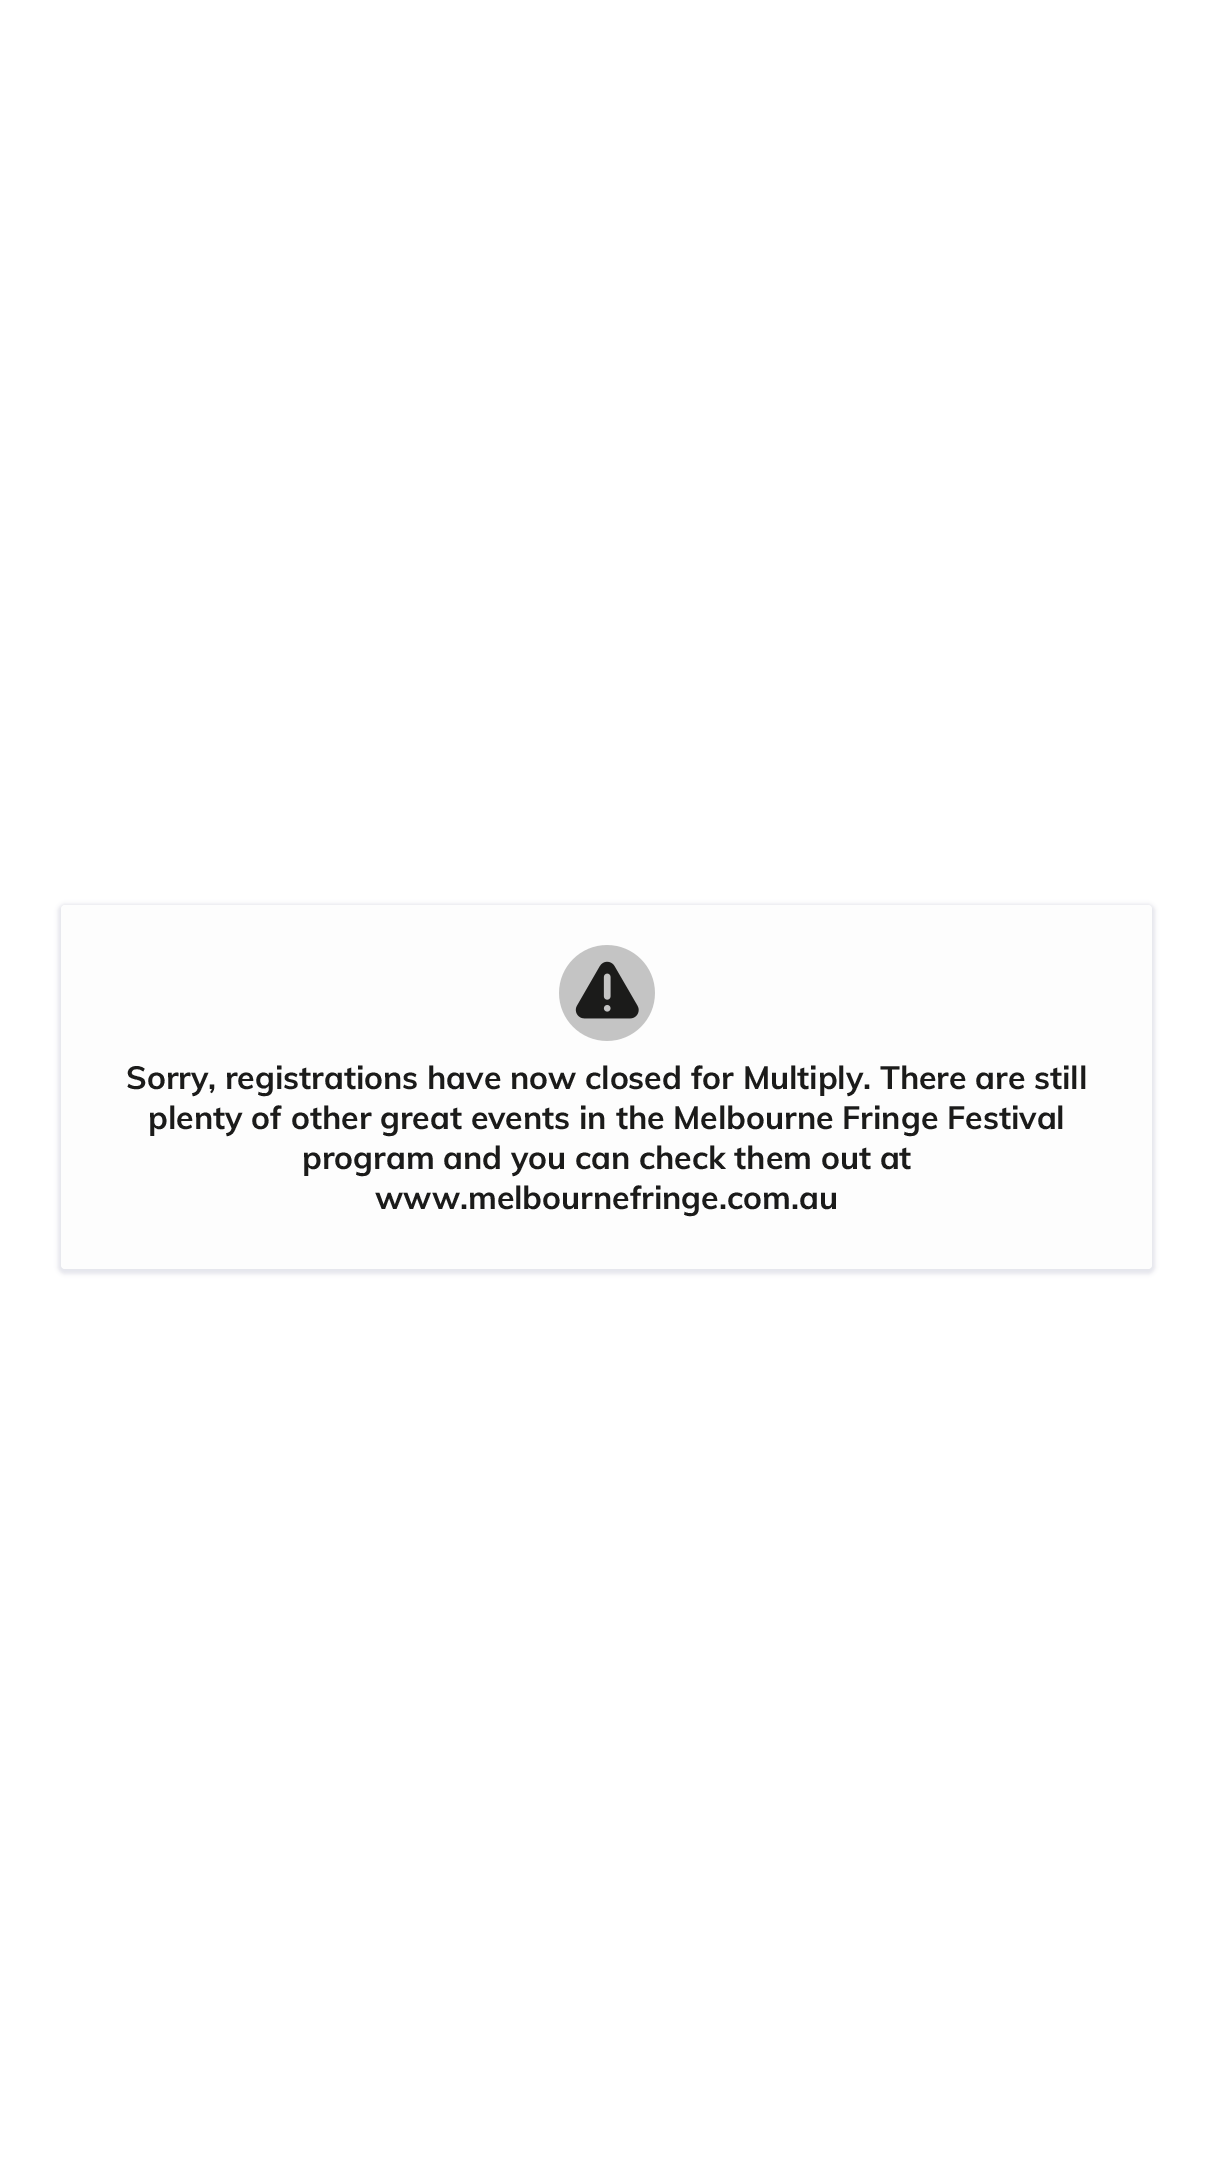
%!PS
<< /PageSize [1213 2174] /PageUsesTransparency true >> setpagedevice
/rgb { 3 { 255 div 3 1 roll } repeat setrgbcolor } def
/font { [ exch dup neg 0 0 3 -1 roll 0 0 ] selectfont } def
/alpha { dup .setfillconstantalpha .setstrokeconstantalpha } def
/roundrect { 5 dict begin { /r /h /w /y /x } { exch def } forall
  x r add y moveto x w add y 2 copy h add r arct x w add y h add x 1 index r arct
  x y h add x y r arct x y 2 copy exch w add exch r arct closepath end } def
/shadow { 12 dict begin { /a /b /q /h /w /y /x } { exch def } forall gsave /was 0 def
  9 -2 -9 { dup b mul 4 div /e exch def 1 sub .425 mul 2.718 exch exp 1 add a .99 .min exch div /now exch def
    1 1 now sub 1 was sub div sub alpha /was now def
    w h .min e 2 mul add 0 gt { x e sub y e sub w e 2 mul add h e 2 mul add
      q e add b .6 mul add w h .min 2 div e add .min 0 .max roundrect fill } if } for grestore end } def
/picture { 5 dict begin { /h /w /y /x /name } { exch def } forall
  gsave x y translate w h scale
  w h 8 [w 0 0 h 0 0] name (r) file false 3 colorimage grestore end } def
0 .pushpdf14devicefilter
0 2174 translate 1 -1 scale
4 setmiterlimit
255 255 255 rgb
0 0 1213 2174 rectfill
181 182 201 rgb
58 904 1097 370 7 2 0.33 shadow
253 253 253 rgb
61 905 1091 364 4 roundrect fill
(img/1.rgb) 559 945 96 96 picture
/Muli-Bold 32 font
27 27 26 rgb
[
  [(Sorry, registrations have now closed for Multiply. There are still) 126 1089]
  [(plenty of other great events in the Melbourne Fringe Festival) 148 1129]
  [(program and you can check them out at) 302 1169]
  [(www.melbournefringe.com.au) 375 1209]
] { aload pop moveto show } forall
.poppdf14devicefilter showpage
